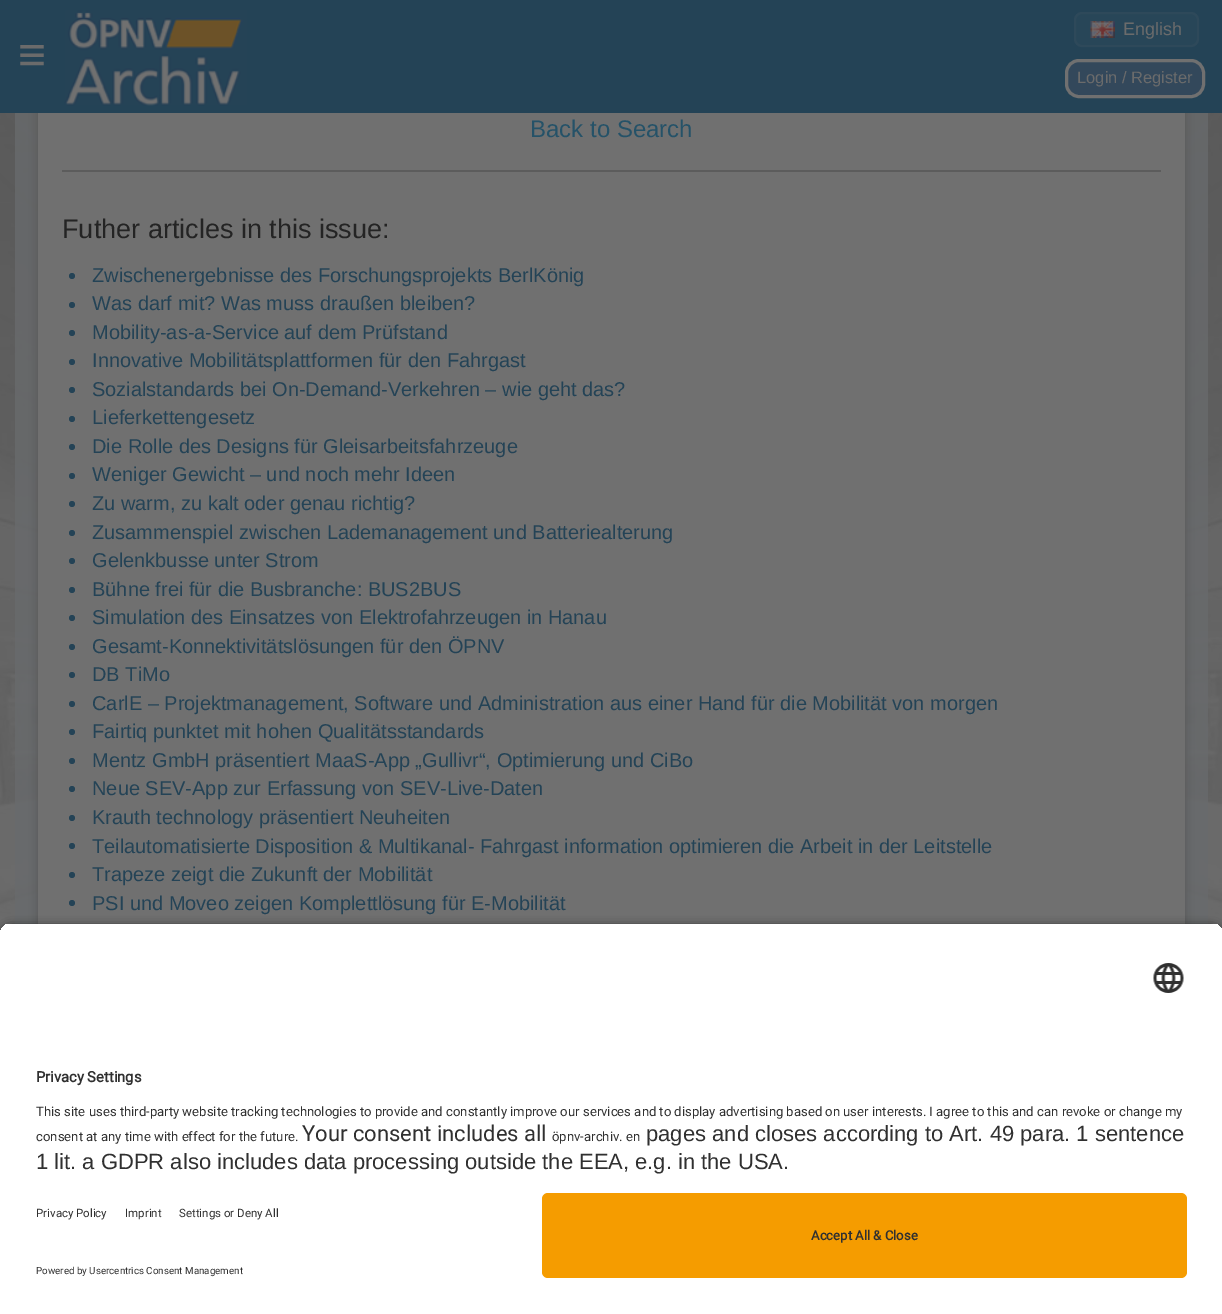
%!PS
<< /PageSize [1222 1314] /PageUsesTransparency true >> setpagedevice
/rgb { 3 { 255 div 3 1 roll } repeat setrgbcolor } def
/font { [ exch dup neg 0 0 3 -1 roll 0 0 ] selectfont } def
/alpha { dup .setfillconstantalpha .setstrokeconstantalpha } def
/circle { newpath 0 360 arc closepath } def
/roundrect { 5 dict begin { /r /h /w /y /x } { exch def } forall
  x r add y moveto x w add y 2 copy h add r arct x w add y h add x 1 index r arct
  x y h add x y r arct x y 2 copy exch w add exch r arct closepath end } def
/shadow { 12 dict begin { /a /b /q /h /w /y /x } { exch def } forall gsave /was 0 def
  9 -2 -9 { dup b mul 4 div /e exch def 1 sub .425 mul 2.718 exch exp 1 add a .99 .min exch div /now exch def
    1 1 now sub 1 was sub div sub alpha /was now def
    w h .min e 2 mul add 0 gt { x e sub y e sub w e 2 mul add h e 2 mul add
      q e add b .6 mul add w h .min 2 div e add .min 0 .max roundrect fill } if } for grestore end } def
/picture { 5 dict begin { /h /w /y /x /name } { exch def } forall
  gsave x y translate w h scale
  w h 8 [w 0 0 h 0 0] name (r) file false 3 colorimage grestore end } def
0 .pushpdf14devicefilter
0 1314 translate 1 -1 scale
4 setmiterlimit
255 255 255 rgb
0 0 1222 1314 rectfill
(img/1.rgb) 0 113 1222 822 picture
0.8 alpha
104 106 108 rgb
15 113 1193 811 rectfill
1 alpha
36 36 36 rgb
38 -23 1147 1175 0 7.5 0.12 shadow
38 -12 1147 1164 0 4 0.16 shadow
36 67 86 rgb
0 0 1222 113 rectfill
(img/2.rgb) 64 10 183 96 picture
40 70 88 rgb
1074 12 125 35 8 roundrect fill
0.08 alpha
112 112 112 rgb
2 setlinewidth
1075 13 123 33 7 roundrect stroke
1 alpha
(img/3.rgb) 1090 21 25 17 picture
51 72 91 rgb
1066.5 60.5 137 36 12.5 roundrect gsave fill grestore
112 112 112 rgb
3 setlinewidth
stroke
38 113 1147 811 rectfill
92 92 92 rgb
62 170 1099 2 rectfill
36 67 86 rgb
72 276 3 circle fill
72 305 3 circle fill
72 333 3 circle fill
72 362 3 circle fill
72 390 3 circle fill
72 419 3 circle fill
72 447 3 circle fill
72 476 3 circle fill
72 504 3 circle fill
72 533 3 circle fill
72 561 3 circle fill
72 590 3 circle fill
72 618 3 circle fill
72 647 3 circle fill
72 675 3 circle fill
72 704 3 circle fill
72 732 3 circle fill
72 761 3 circle fill
72 789 3 circle fill
72 818 3 circle fill
72 846 3 circle fill
72 875 3 circle fill
72 903 3 circle fill
0 0 0 rgb
0 927 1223 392 12 5 0.8 shadow
gsave
12 923 moveto 1211 923 lineto 1217.5 923 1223 928.5 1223 935 curveto 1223 1181 lineto 0 1181 lineto 0 935 lineto 0 928.5 5.5 923 12 923 curveto closepath clip newpath
255 255 255 rgb
0 924 1222 257 rectfill
grestore
(img/4.rgb) 1153 963 31 30 picture
255 255 255 rgb
0 1181 1222 133 rectfill
245 156 0 rgb
542 1193 645 85 6 roundrect fill
/LiberationSans-Regular 48 font
107 107 107 rgb
18 71 moveto (≡) show
/LiberationSans-Regular 18 font
1123 35 moveto (English) show
/LiberationSans-Regular 16.5 font
1077 83 moveto (Login / Register) show
/LiberationSans-Regular 24 font
37 82 104 rgb
530 137 moveto (Back to Search) show
/LiberationSans-Regular 27 font
36 36 36 rgb
62 238 moveto (Futher articles in this issue:) show
/LiberationSans-Regular 20 font
36 67 86 rgb
[
  [(Zwischenergebnisse des Forschungsprojekts BerlKönig) 92 282]
  [(Was darf mit? Was muss draußen bleiben?) 92 310]
  [(Mobility-as-a-Service auf dem Prüfstand) 92 339]
  [(Innovative Mobilitätsplattformen für den Fahrgast) 92 367]
  [(Sozialstandards bei On-Demand-Verkehren – wie geht das?) 92 396]
  [(Lieferkettengesetz) 92 424]
  [(Die Rolle des Designs für Gleisarbeitsfahrzeuge) 92 453]
  [(Weniger Gewicht – und noch mehr Ideen) 92 481]
  [(Zu warm, zu kalt oder genau richtig?) 92 510]
  [(Zusammenspiel zwischen Lademanagement und Batteriealterung) 92 539]
  [(Gelenkbusse unter Strom) 92 567]
  [(Bühne frei für die Busbranche: BUS2BUS) 92 596]
  [(Simulation des Einsatzes von Elektrofahrzeugen in Hanau) 92 624]
  [(Gesamt-Konnektivitätslösungen für den ÖPNV) 92 653]
  [(DB TiMo) 92 681]
  [(CarlE – Projektmanagement, Software und Administration aus einer Hand für die Mobilität von morgen) 92 710]
  [(Fairtiq punktet mit hohen Qualitätsstandards) 92 738]
  [(Mentz GmbH präsentiert MaaS-App „Gullivr“, Optimierung und CiBo) 92 767]
  [(Neue SEV-App zur Erfassung von SEV-Live-Daten) 92 795]
  [(Krauth technology präsentiert Neuheiten) 92 824]
  [(Teilautomatisierte Disposition & Multikanal- Fahrgast information optimieren die Arbeit in der Leitstelle) 92 853]
  [(Trapeze zeigt die Zukunft der Mobilität) 92 881]
  [(PSI und Moveo zeigen Komplettlösung für E-Mobilität) 92 910]
] { aload pop moveto show } forall
/Roboto-Bold 14.75 font
48 48 48 rgb
36 1082 moveto (Privacy Settings) show
/Roboto-Regular 13.12 font
36 1116 moveto (This site uses third-party website tracking technologies to provide and constantly improve our services and to display advertising based on user interests. I agree to this and can revoke or change my) show
36 1141 moveto (consent at any time with effect for the future.) show
/Roboto-Regular 22 font
302 1141 moveto (Your consent includes all) show
/Roboto-Regular 13.12 font
552 1141 moveto (öpnv-archiv. en) show
/LiberationSans-Regular 22 font
646 1141 moveto (pages and closes according to Art. 49 para. 1 sentence) show
36 1169 moveto (1 lit. a GDPR also includes data processing outside the EEA, e.g. in the USA.) show
/Roboto-Regular 11.5 font
[
  [(Privacy Policy) 36 1217]
  [(Imprint) 125 1217]
  [(Settings or Deny All) 179 1217]
] { aload pop moveto show } forall
/Roboto-Regular 9.8 font
36 1274 moveto (Powered by Usercentrics Consent Management) show
/Roboto-Bold 13.12 font
811 1240 moveto (Accept All & Close) show
.poppdf14devicefilter showpage
